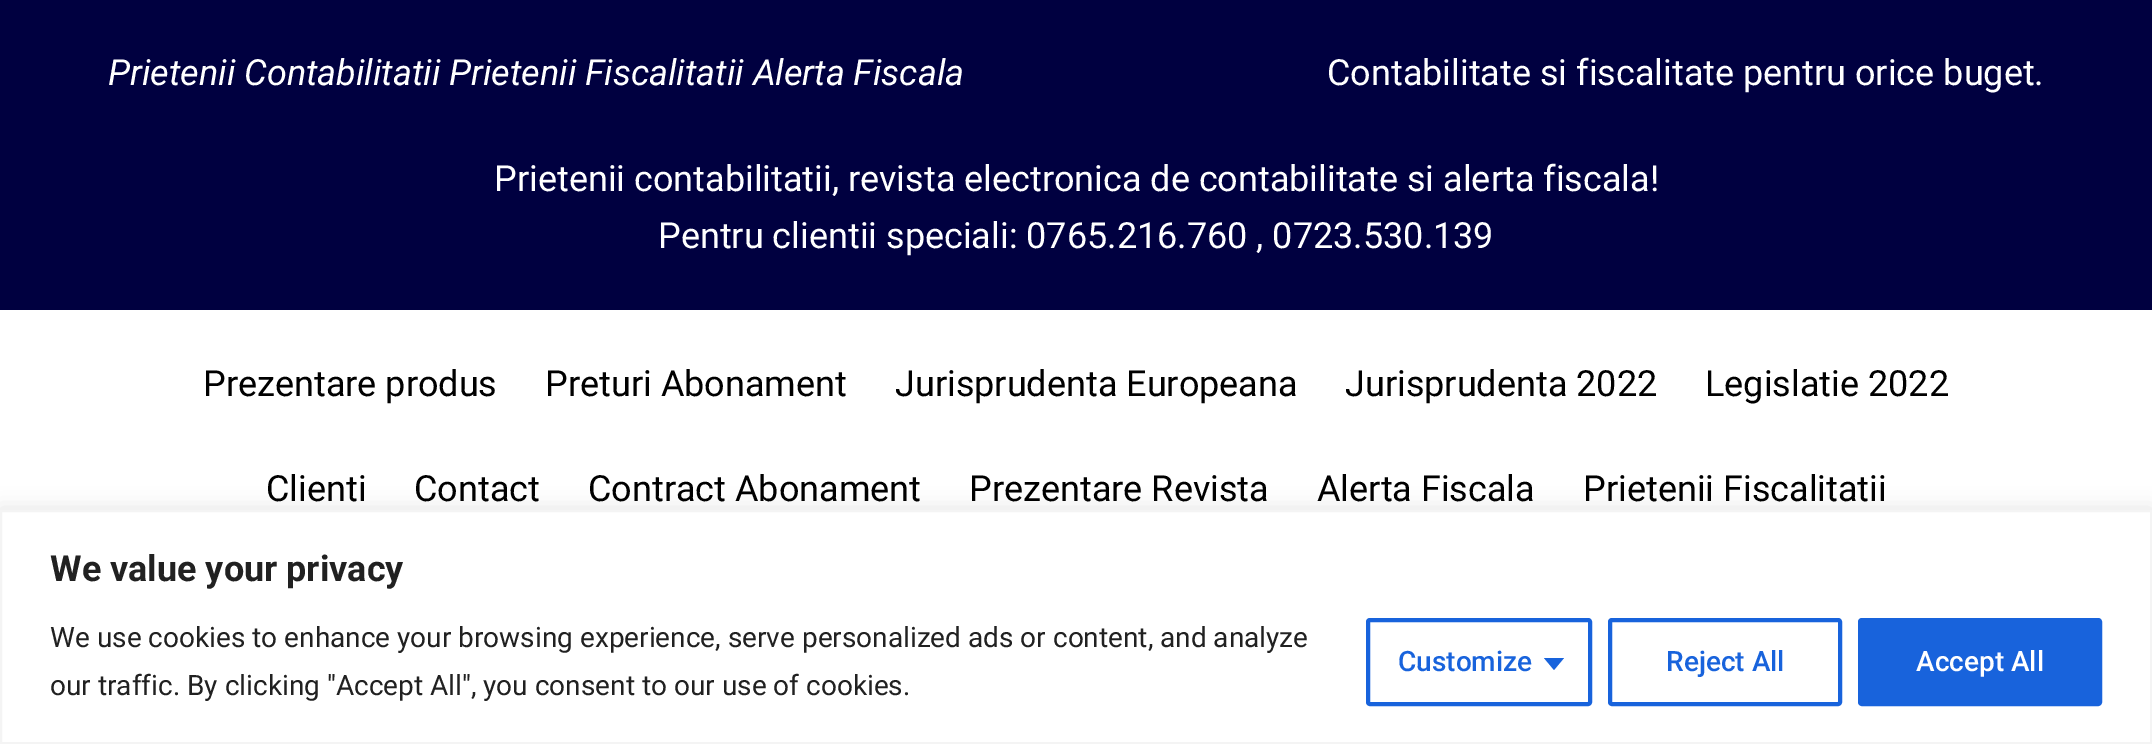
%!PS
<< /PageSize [2152 744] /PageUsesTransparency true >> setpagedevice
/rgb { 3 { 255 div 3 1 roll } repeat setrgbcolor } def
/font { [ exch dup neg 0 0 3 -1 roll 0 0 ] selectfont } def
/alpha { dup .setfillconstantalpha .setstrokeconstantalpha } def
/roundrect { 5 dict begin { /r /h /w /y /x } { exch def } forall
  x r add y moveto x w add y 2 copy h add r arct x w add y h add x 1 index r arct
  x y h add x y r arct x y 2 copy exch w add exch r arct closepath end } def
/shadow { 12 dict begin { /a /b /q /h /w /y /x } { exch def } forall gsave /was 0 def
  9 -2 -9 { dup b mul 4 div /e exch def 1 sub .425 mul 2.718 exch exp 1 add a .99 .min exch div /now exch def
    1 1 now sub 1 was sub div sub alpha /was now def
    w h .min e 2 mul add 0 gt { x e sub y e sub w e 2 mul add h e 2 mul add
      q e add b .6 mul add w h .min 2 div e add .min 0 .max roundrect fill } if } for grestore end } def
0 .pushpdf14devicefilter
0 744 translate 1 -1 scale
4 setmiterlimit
255 255 255 rgb
0 0 2152 744 rectfill
0 0 64 rgb
0 0 2152 310 rectfill
172 171 171 rgb
0 508 2152 234 0 10 0.3 shadow
255 255 255 rgb
1 511 moveto 2151 511 lineto 2151 743 lineto 1 743 lineto closepath gsave fill grestore
244 244 244 rgb
2 setlinewidth
stroke
24 99 220 rgb
4 setlinewidth
1368 620 222 84 2 roundrect stroke
1544 658 moveto 1564 658 lineto 1554 670 lineto closepath fill
1610 620 230 84 2 roundrect stroke
1860 620 240 84 2 roundrect gsave fill grestore
stroke
/Roboto-Italic 36 font
255 255 255 rgb
108 85 moveto (Prietenii Contabilitatii Prietenii Fiscalitatii Alerta Fiscala) show
/Roboto-Regular 36 font
[
  [(Contabilitate si fiscalitate pentru orice buget.) 1327 85]
  [(Prietenii contabilitatii, revista electronica de contabilitate si alerta fiscala!) 494 191]
  [(Pentru clientii speciali: 0765.216.760 , 0723.530.139) 658 248]
] { aload pop moveto show } forall
0 0 0 rgb
[
  [(Prezentare produs) 203 396]
  [(Preturi Abonament) 545 396]
  [(Jurisprudenta Europeana) 895 396]
  [(Jurisprudenta 2022) 1345 396]
  [(Legislatie 2022) 1705 396]
  [(Clienti) 266 501]
  [(Contact) 414 501]
  [(Contract Abonament) 588 501]
  [(Prezentare Revista) 969 501]
  [(Alerta Fiscala) 1317 501]
  [(Prietenii Fiscalitatii) 1583 501]
] { aload pop moveto show } forall
/Roboto-Bold 36 font
33 33 33 rgb
50 581 moveto (We value your privacy) show
/Roboto-Regular 28 font
50 647 moveto (We use cookies to enhance your browsing experience, serve personalized ads or content, and analyze) show
50 695 moveto (our traffic. By clicking "Accept All", you consent to our use of cookies.) show
/Roboto-Medium 28 font
24 99 220 rgb
1398 671 moveto (Customize) show
1666 671 moveto (Reject All) show
255 255 255 rgb
1916 671 moveto (Accept All) show
.poppdf14devicefilter showpage
